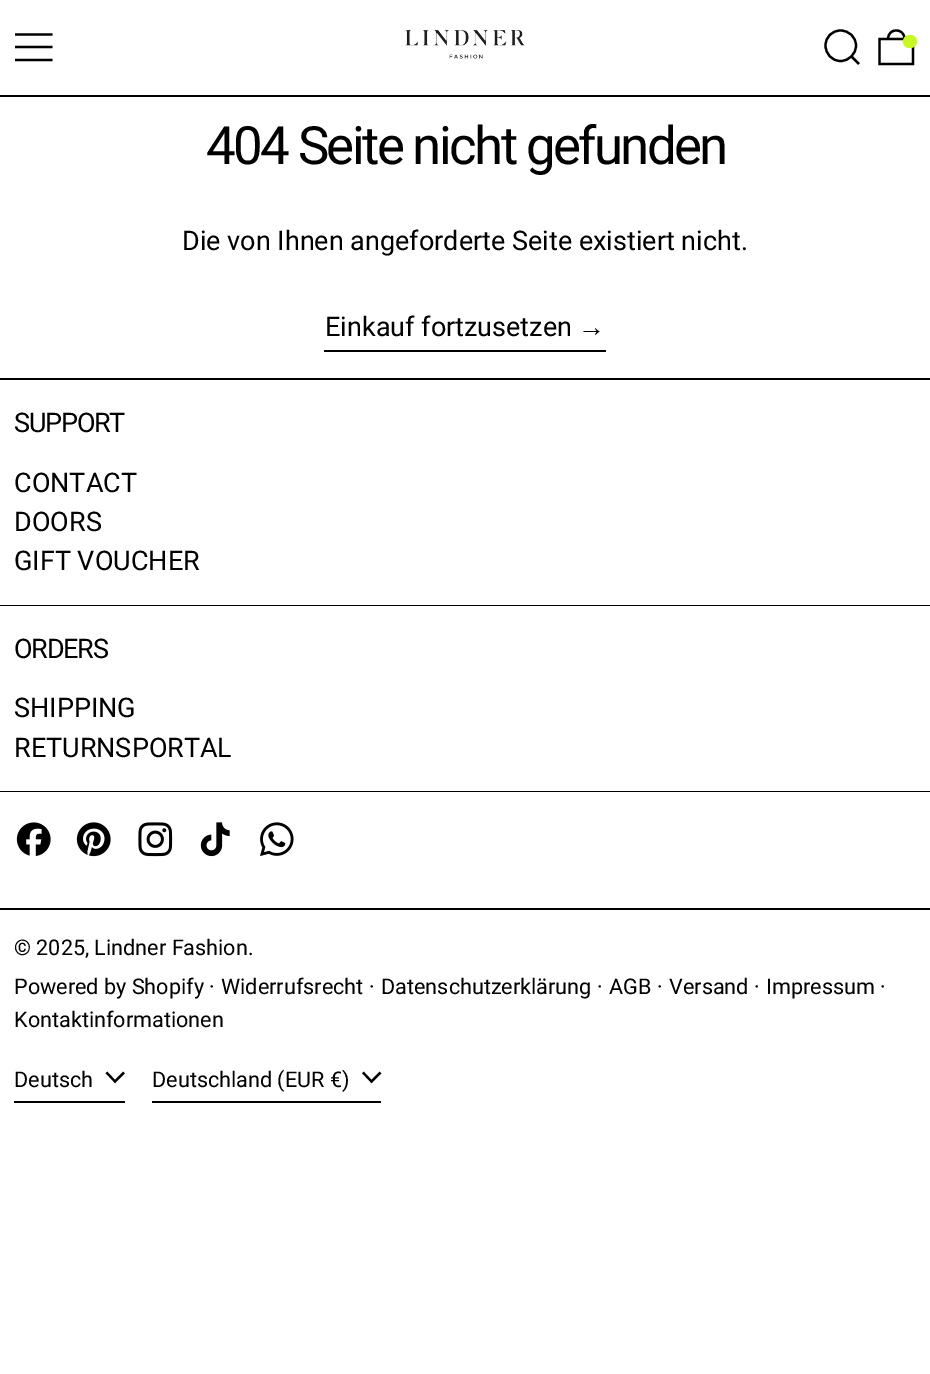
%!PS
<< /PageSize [930 1374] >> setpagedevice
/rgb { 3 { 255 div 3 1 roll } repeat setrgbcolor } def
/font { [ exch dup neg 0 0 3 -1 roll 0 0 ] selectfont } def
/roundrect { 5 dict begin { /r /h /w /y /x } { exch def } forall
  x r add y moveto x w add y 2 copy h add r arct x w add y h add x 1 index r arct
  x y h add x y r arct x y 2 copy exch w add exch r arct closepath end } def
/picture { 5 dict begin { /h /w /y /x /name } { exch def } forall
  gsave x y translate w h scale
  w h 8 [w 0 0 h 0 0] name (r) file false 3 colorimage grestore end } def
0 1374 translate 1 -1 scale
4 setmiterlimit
255 255 255 rgb
0 0 930 1374 rectfill
0 0 0 rgb
0 95 930 2 rectfill
2.2 setlinewidth
15 34.5 moveto 52.5 34.5 lineto 15 47 moveto 52.5 47 lineto 15 60 moveto 52.5 60 lineto stroke
(img/1.rgb) 405 30 120 29 picture
825.5 45.5 moveto 825.5 54 832 61 840.5 61 curveto 849 61 856 54 856 45.5 curveto 856 37 849 30.5 840.5 30.5 curveto 832 30.5 825.5 37 825.5 45.5 curveto closepath 851.5 56.5 moveto 859 64 lineto stroke
879.5 39 moveto 913 39 lineto 913 64 lineto 879.5 64 lineto closepath 904.5 39 moveto 904.5 27.5 888 27.5 888 39 curveto stroke
198 249 31 rgb
903 35 14 13 6.5 roundrect fill
[
  [0 378 930 2 0 0 0]
  [324 350 282 2 0 0 0]
  [0 908 930 2 0 0 0]
  [0 605 930 187 0 0 0]
  [0 606 930 185 255 255 255]
] { aload pop rgb rectfill } forall
(img/2.rgb) 16 822 35 34 picture
(img/3.rgb) 76 822 35 35 picture
(img/4.rgb) 138 822 35 35 picture
(img/5.rgb) 200 822 30 35 picture
(img/6.rgb) 260 822 34 35 picture
0 0 0 rgb
14 1101 111 2 rectfill
106.5 1072.5 moveto 115 1081.5 lineto 124 1072.5 lineto stroke
152 1101 229 2 rectfill
363 1072.5 moveto 371.5 1081.5 lineto 380.5 1072.5 lineto stroke
/Roboto-Regular 52.75 font
206 164 moveto -2.6 0 (404 Seite nicht gefunden) ashow
/Roboto-Regular 27 font
182 250 moveto (Die von Ihnen angeforderte Seite existiert nicht.) show
325 336 moveto (Einkauf fortzusetzen) show
/LiberationSans-Regular 27 font
578 336 moveto (→) show
/Roboto-Regular 27 font
14 432 moveto -1.25 0 (SUPPORT) ashow
[
  [(CONTACT) 14 492]
  [(DOORS) 14 531]
  [(GIFT VOUCHER) 14 570]
] { aload pop moveto show } forall
14 658 moveto -1.25 0 (ORDERS) ashow
14 717 moveto (SHIPPING) show
14 757 moveto (RETURNSPORTAL) show
/Roboto-Regular 21.6 font
[
  [(© 2025, Lindner Fashion.) 14 955]
  [(Powered by Shopify ·) 14 994]
  [(Widerrufsrecht ·) 221 994]
  [(Datenschutzerklärung ·) 381 994]
  [(AGB ·) 609 994]
  [(Versand ·) 669 994]
  [(Impressum ·) 766 994]
  [(Kontaktinformationen) 14 1027]
  [(Deutsch) 14 1087]
  [(Deutschland \(EUR €\)) 152 1087]
] { aload pop moveto show } forall
showpage
